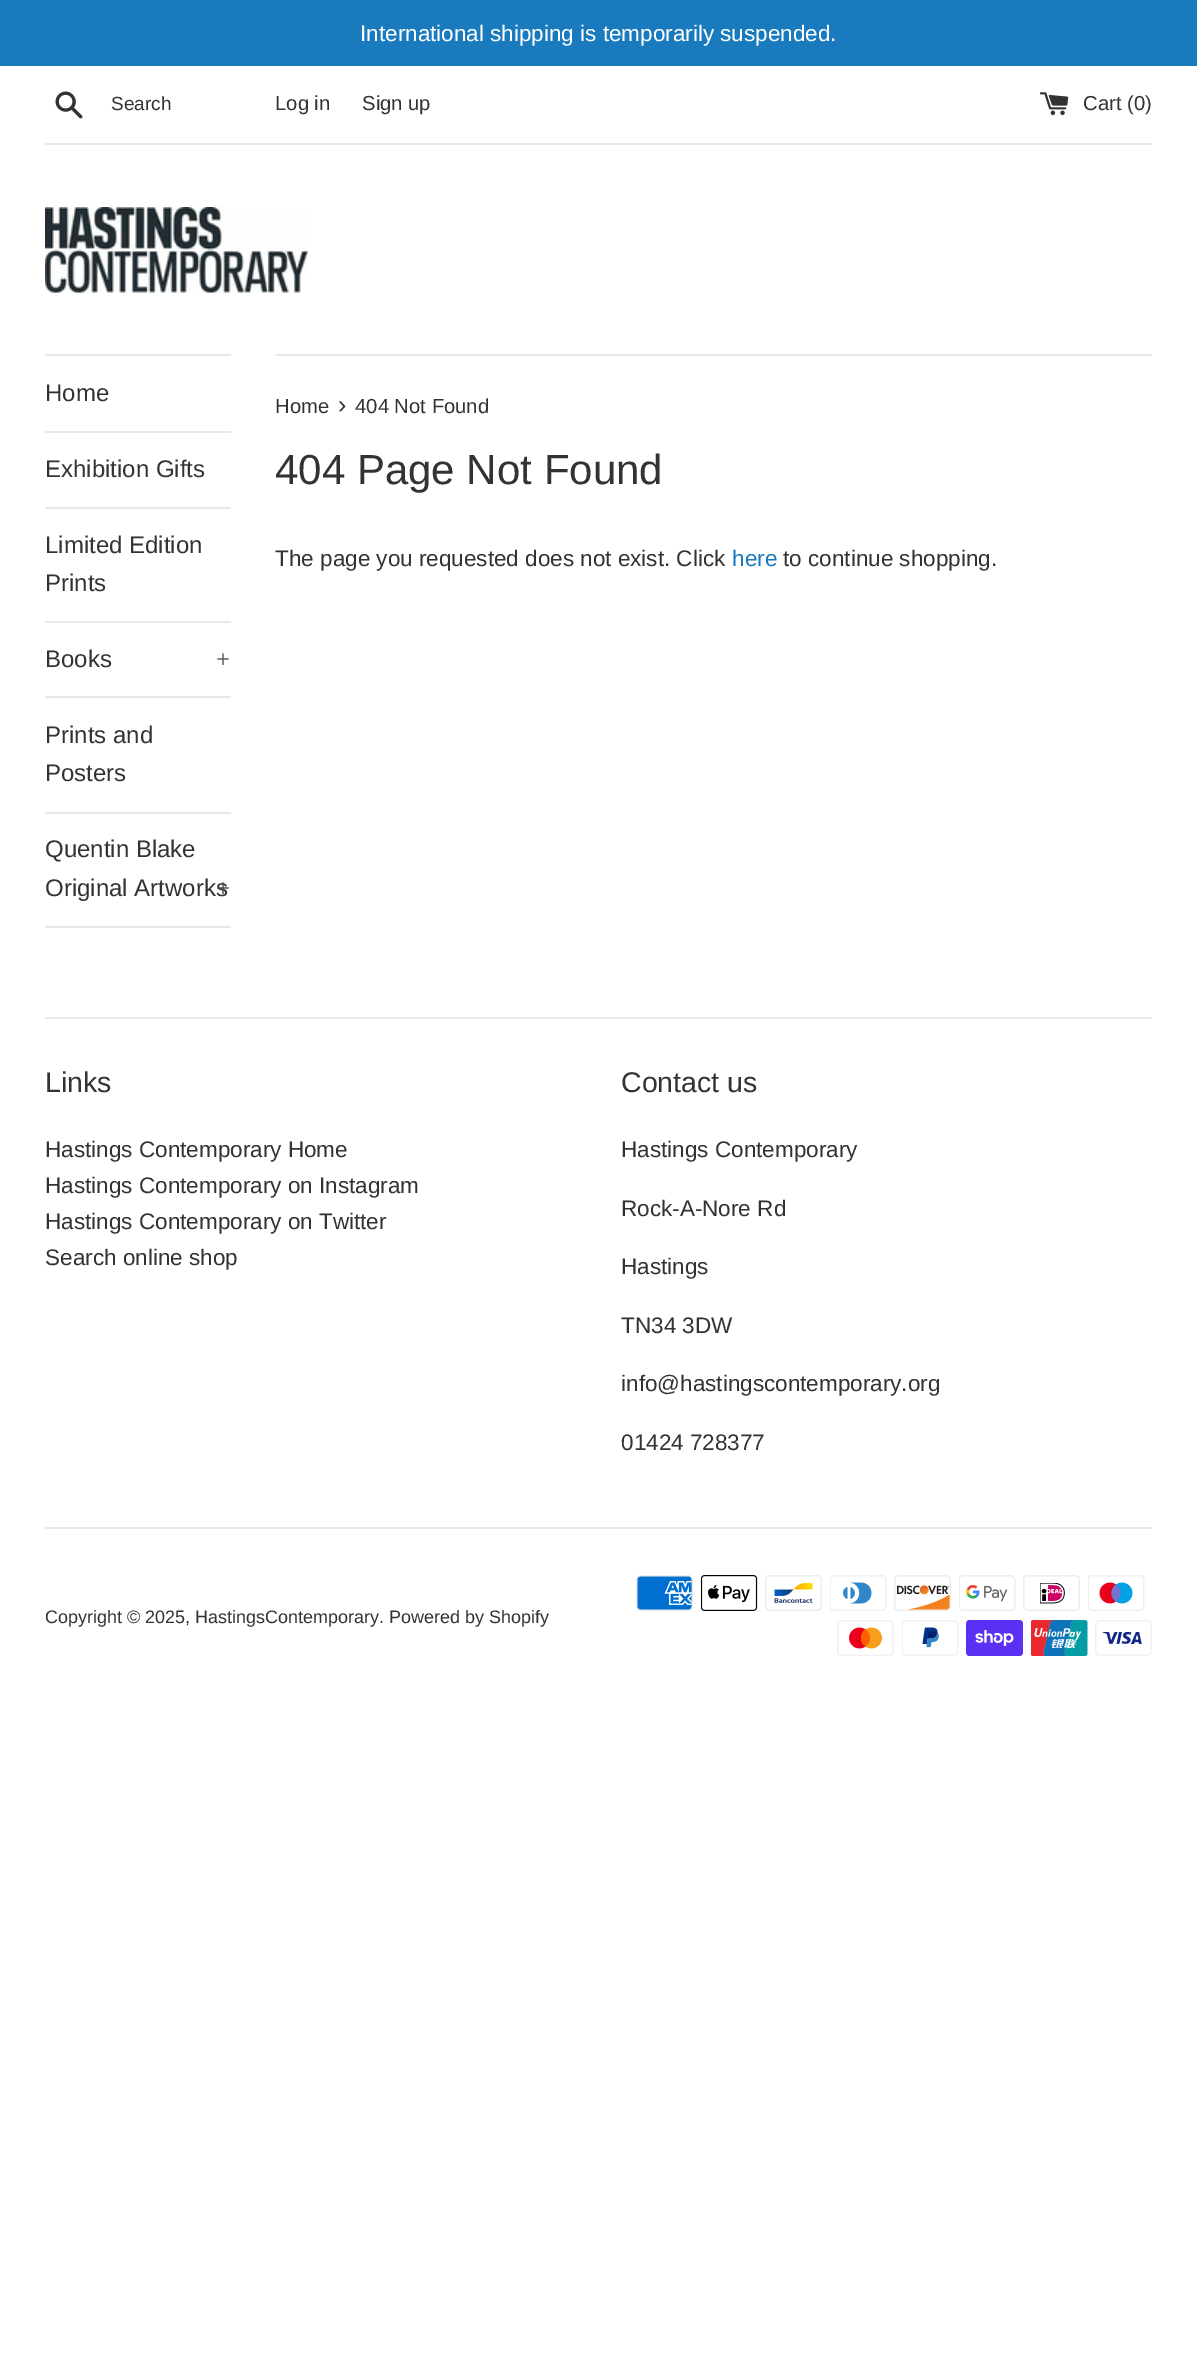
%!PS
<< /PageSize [1197 2353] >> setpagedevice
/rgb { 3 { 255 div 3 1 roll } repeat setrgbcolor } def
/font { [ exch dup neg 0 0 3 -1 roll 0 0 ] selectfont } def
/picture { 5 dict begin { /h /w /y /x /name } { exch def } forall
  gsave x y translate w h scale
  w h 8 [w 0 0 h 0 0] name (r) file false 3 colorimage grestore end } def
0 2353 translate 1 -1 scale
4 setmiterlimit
255 255 255 rgb
0 0 1197 2353 rectfill
25 123 189 rgb
0 0 1197 66 rectfill
(img/1.rgb) 55 91 28 28 picture
(img/2.rgb) 1040 92 29 24 picture
232 232 232 rgb
45 143 1107 2 rectfill
(img/3.rgb) 45 207 263 86 picture
[
  [45 354 186 2 232 232 232]
  [45 431 186 2 232 232 232]
  [45 507 186 2 232 232 232]
  [45 621 186 2 232 232 232]
  [45 696 186 2 232 232 232]
  [45 812 186 2 232 232 232]
  [45 926 186 2 232 232 232]
  [276 354 876 2 232 232 232]
  [45 1017 1107 2 232 232 232]
  [45 1527 1107 2 232 232 232]
] { aload pop rgb rectfill } forall
(img/4.rgb) 636 1575 57 36 picture
(img/5.rgb) 701 1575 57 36 picture
(img/6.rgb) 765 1575 57 36 picture
(img/7.rgb) 830 1575 57 36 picture
(img/8.rgb) 894 1575 57 36 picture
(img/9.rgb) 959 1575 57 36 picture
(img/10.rgb) 1023 1575 57 36 picture
(img/11.rgb) 1088 1575 57 36 picture
(img/12.rgb) 837 1620 57 36 picture
(img/13.rgb) 902 1620 57 36 picture
(img/14.rgb) 966 1620 57 36 picture
(img/15.rgb) 1031 1620 57 36 picture
(img/16.rgb) 1095 1620 57 36 picture
/LiberationSans-Regular 22.5 font
255 255 255 rgb
360 41 moveto (International shipping is temporarily suspended.) show
/LiberationSans-Regular 19 font
51 51 51 rgb
111 110 moveto (Search) show
/LiberationSans-Regular 20.25 font
[
  [(Log in) 275 110]
  [(Sign up) 362 110]
  [(Cart \(0\)) 1083 110]
] { aload pop moveto show } forall
/LiberationSans-Regular 24 font
[
  [(Home) 45 401]
  [(Exhibition Gifts) 45 477]
  [(Limited Edition) 45 553]
  [(Prints) 45 591]
  [(Books) 45 667]
] { aload pop moveto show } forall
92 92 92 rgb
216 667 moveto (+) show
51 51 51 rgb
[
  [(Prints and) 45 743]
  [(Posters) 45 781]
  [(Quentin Blake) 45 857]
  [(Original Artworks) 45 896]
] { aload pop moveto show } forall
78 78 78 rgb
216 896 moveto (+) show
/LiberationSans-Regular 20.25 font
51 51 51 rgb
275 413 moveto (Home) show
/LiberationSans-Regular 25 font
338 413 moveto (›) show
/LiberationSans-Regular 20.25 font
355 413 moveto (404 Not Found) show
/Arimo-Regular 42 font
275 484 moveto (404 Page Not Found) show
/LiberationSans-Regular 22.5 font
275 566 moveto (The page you requested does not exist. Click) show
25 123 189 rgb
732 566 moveto (here) show
51 51 51 rgb
783 566 moveto (to continue shopping.) show
/Arimo-Regular 28.5 font
45 1092 moveto (Links) show
/LiberationSans-Regular 22.5 font
[
  [(Hastings Contemporary Home) 45 1157]
  [(Hastings Contemporary on Instagram) 45 1193]
  [(Hastings Contemporary on Twitter) 45 1229]
  [(Search online shop) 45 1265]
] { aload pop moveto show } forall
/Arimo-Regular 28.5 font
621 1092 moveto (Contact us) show
/LiberationSans-Regular 22.5 font
[
  [(Hastings Contemporary) 621 1157]
  [(Rock-A-Nore Rd) 621 1216]
  [(Hastings) 621 1274]
  [(TN34 3DW) 621 1333]
  [(info@hastingscontemporary.org) 621 1391]
  [(01424 728377) 621 1450]
] { aload pop moveto show } forall
/LiberationSans-Regular 18 font
45 1623 moveto (Copyright © 2025, HastingsContemporary. Powered by Shopify) show
showpage
